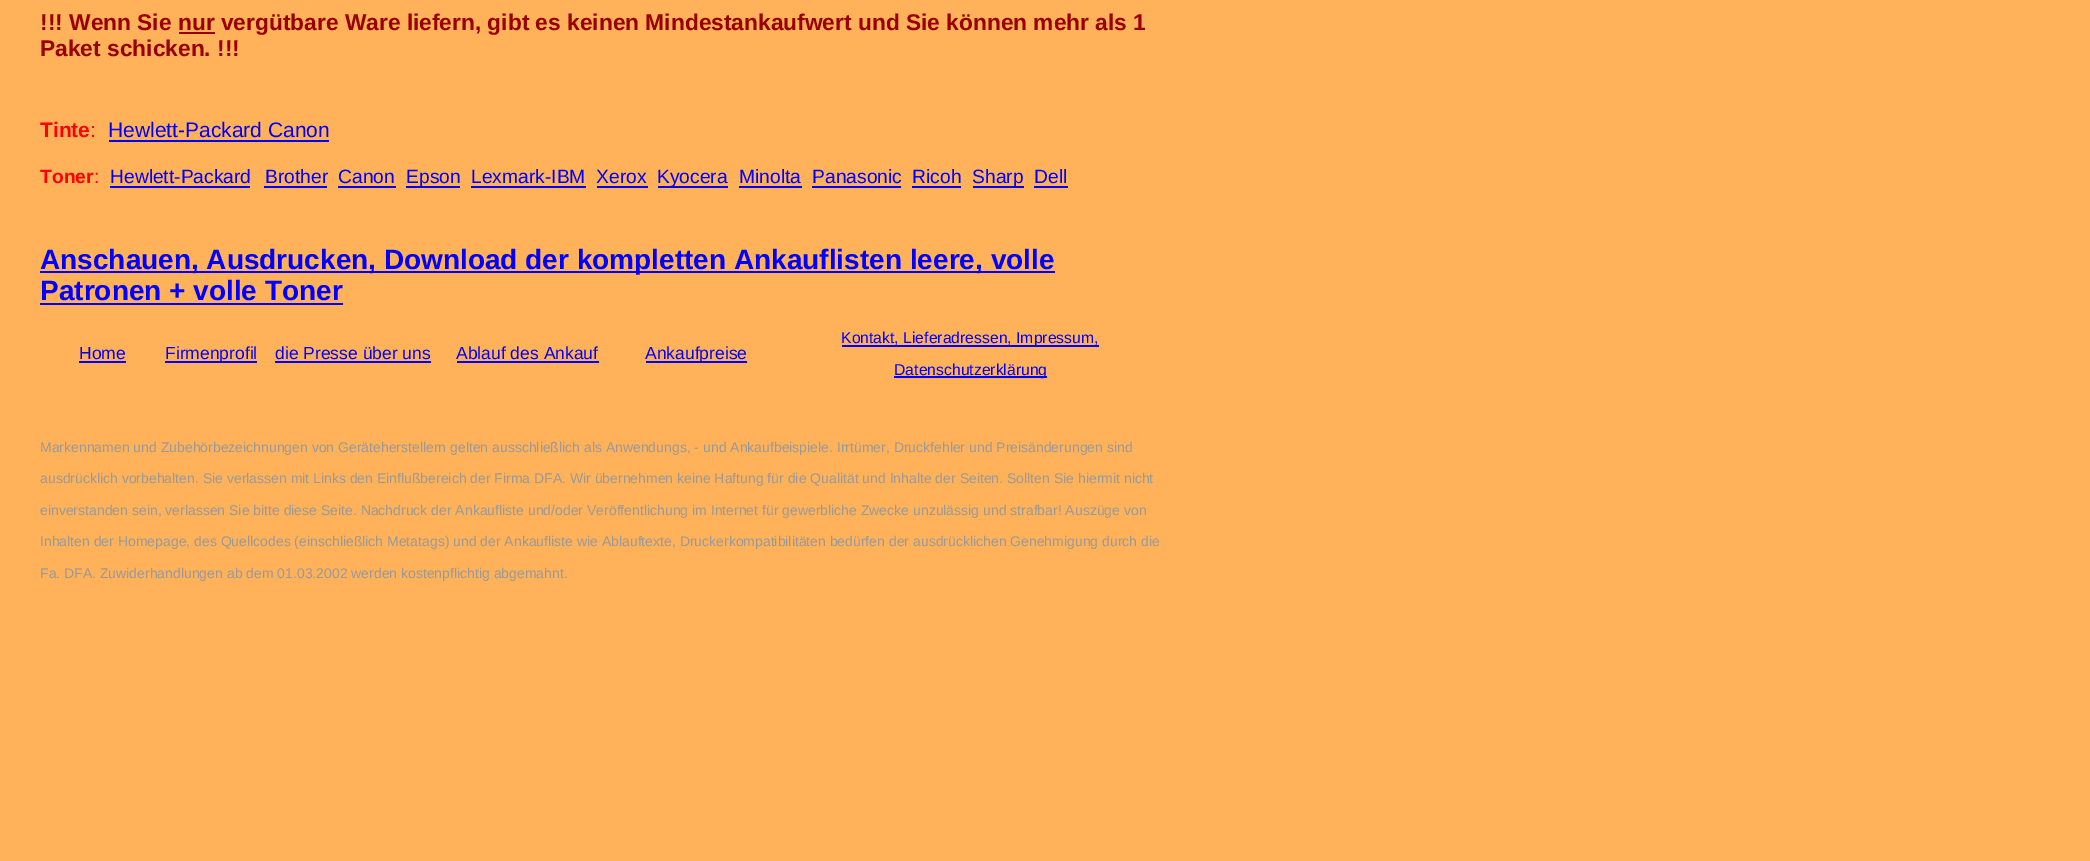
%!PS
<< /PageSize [2090 861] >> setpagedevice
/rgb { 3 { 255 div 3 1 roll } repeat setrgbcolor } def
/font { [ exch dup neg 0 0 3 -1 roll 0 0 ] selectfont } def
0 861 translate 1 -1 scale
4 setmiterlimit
255 178 90 rgb
0 0 2090 861 rectfill
[
  [179 32 36 2 153 0 0]
  [109 140 220 2 0 0 255]
  [110 186 140 2 0 0 255]
  [264 186 63 2 0 0 255]
  [338 186 58 2 0 0 255]
  [406 186 54 2 0 0 255]
  [471 186 115 2 0 0 255]
  [597 186 51 2 0 0 255]
  [658 186 70 2 0 0 255]
  [739 186 63 2 0 0 255]
  [812 186 89 2 0 0 255]
  [912 186 49 2 0 0 255]
  [973 186 51 2 0 0 255]
  [1034 186 34 2 0 0 255]
  [40 271 1015 2 0 0 255]
  [40 303 303 2 0 0 255]
  [79 361 47 2 0 0 255]
  [165 361 92 2 0 0 255]
  [275 361 156 2 0 0 255]
  [457 361 142 2 0 0 255]
  [646 361 101 2 0 0 255]
  [842 345 257 2 0 0 255]
  [894 376 153 2 0 0 255]
] { aload pop rgb rectfill } forall
/LiberationSans-Bold 22.75 font
153 0 0 rgb
40 30 moveto (!!! Wenn Sie nur vergütbare Ware liefern, gibt es keinen Mindestankaufwert und Sie können mehr als 1) show
40 56 moveto (Paket schicken. !!!) show
/LiberationSans-Bold 21 font
255 0 0 rgb
40 137 moveto (Tinte) show
/LiberationSans-Regular 21 font
90 137 moveto (:) show
0 0 255 rgb
108 137 moveto (Hewlett-Packard Canon) show
/LiberationSans-Bold 19.25 font
255 0 0 rgb
40 183 moveto (Toner) show
/LiberationSans-Regular 19.25 font
94 183 moveto (:) show
0 0 255 rgb
[
  [(Hewlett-Packard) 110 183]
  [(Brother) 265 183]
  [(Canon) 338 183]
  [(Epson) 406 183]
  [(Lexmark-IBM) 471 183]
  [(Xerox) 596 183]
  [(Kyocera) 657 183]
  [(Minolta) 739 183]
  [(Panasonic) 812 183]
  [(Ricoh) 912 183]
  [(Sharp) 972 183]
  [(Dell) 1034 183]
] { aload pop moveto show } forall
/LiberationSans-Bold 28 font
40 269 moveto (Anschauen, Ausdrucken, Download der kompletten Ankauflisten leere, volle) show
40 300 moveto (Patronen + volle Toner) show
/LiberationSans-Regular 17.5 font
[
  [(Home) 79 359]
  [(Firmenprofil) 165 359]
  [(die Presse über uns) 275 359]
  [(Ablauf des Ankauf) 456 359]
  [(Ankaufpreise) 645 359]
] { aload pop moveto show } forall
/LiberationSans-Regular 15.75 font
841 343 moveto (Kontakt, Lieferadressen, Impressum,) show
894 375 moveto (Datenschutzerklärung) show
/LiberationSans-Regular 14 font
153 153 153 rgb
[
  [(Markennamen und Zubehörbezeichnungen von Geräteherstellern gelten ausschließlich als Anwendungs, - und Ankaufbeispiele. Irrtümer, Druckfehler und Preisänderungen sind) 40 452]
  [(ausdrücklich vorbehalten. Sie verlassen mit Links den Einflußbereich der Firma DFA. Wir übernehmen keine Haftung für die Qualität und Inhalte der Seiten. Sollten Sie hiermit nicht) 40 483]
  [(einverstanden sein, verlassen Sie bitte diese Seite. Nachdruck der Ankaufliste und/oder Veröffentlichung im Internet für gewerbliche Zwecke unzulässig und strafbar! Auszüge von) 40 515]
  [(Inhalten der Homepage, des Quellcodes \(einschließlich Metatags\) und der Ankaufliste wie Ablauftexte, Druckerkompatibilitäten bedürfen der ausdrücklichen Genehmigung durch die) 40 546]
  [(Fa. DFA. Zuwiderhandlungen ab dem 01.03.2002 werden kostenpflichtig abgemahnt.) 40 578]
] { aload pop moveto show } forall
showpage
